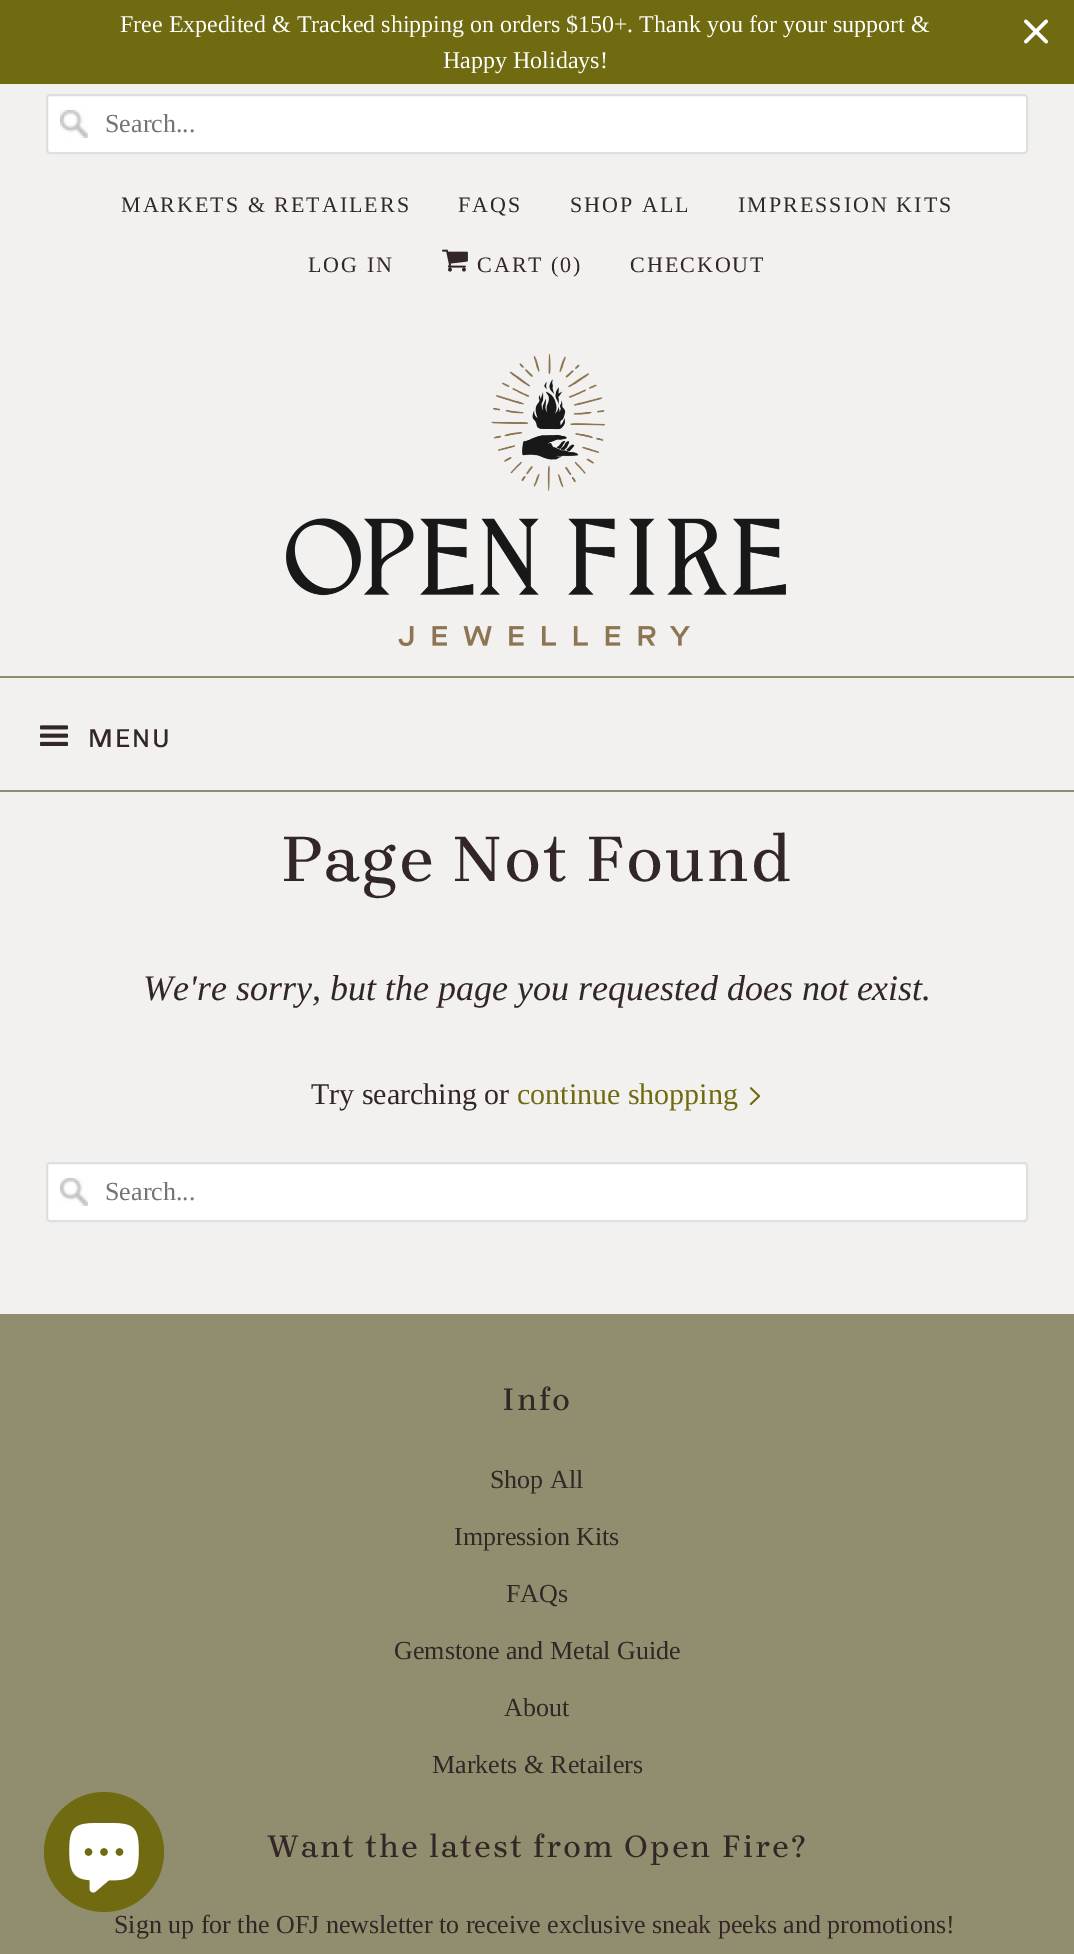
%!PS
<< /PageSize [1074 1954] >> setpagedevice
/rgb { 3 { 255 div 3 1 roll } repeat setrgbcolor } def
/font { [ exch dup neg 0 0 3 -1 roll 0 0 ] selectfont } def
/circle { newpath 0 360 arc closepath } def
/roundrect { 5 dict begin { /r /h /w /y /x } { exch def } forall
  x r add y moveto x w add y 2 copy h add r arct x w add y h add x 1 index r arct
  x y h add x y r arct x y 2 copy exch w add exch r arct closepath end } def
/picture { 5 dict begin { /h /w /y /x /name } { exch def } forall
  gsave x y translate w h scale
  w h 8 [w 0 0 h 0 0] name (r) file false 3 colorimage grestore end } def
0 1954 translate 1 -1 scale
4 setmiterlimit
242 241 240 rgb
0 0 1074 1954 rectfill
112 107 16 rgb
0 0 1074 84 rectfill
(img/1.rgb) 1024 19 25 25 picture
255 255 255 rgb
46 94 982 60 4 roundrect fill
(img/2.rgb) 60 110 28 28 picture
223 223 223 rgb
2 setlinewidth
47 95 980 58 3 roundrect stroke
(img/3.rgb) 442 249 26 23 picture
(img/4.rgb) 286 354 500 292 picture
145 142 112 rgb
0 676 1074 2 rectfill
0 790 1074 2 rectfill
(img/5.rgb) 40 725 28 21 picture
(img/6.rgb) 749 1087 12 19 picture
255 255 255 rgb
46 1162 982 60 4 roundrect fill
(img/2.rgb) 60 1178 28 28 picture
223 223 223 rgb
47 1163 980 58 3 roundrect stroke
145 142 112 rgb
0 1314 1074 640 rectfill
112 107 16 rgb
104 1852 60 circle fill
(img/7.rgb) 69 1823 70 70 picture
/LiberationSerif-Regular 24 font
255 255 255 rgb
120 32 moveto (Free Expedited & Tracked shipping on orders $150+. Thank you for your support &) show
443 68 moveto (Happy Holidays!) show
/LiberationSerif-Regular 26 font
117 117 117 rgb
105 132 moveto (Search...) show
/LiberationSerif-Regular 22 font
51 38 38 rgb
121 212 moveto 2 0 (MARKETS & RETAILERS) ashow
458 212 moveto 2 0 (FAQS) ashow
570 212 moveto 2 0 (SHOP ALL) ashow
738 212 moveto 2 0 (IMPRESSION KITS) ashow
308 272 moveto 2 0 (LOG IN) ashow
477 272 moveto 2 0 (CART \(0\)) ashow
630 272 moveto 2 0 (CHECKOUT) ashow
/Chivo-Regular 26 font
88 747 moveto 2 0 (MENU) ashow
/Brygada1918-Medium 66 font
281 881 moveto 2 0 (Page Not Found) ashow
/LiberationSerif-Italic 36 font
143 1000 moveto (We're sorry, but the page you requested does not exist.) show
/LiberationSerif-Regular 30 font
311 1104 moveto (Try searching or) show
112 107 16 rgb
517 1104 moveto (continue shopping) show
/LiberationSerif-Regular 26 font
117 117 117 rgb
105 1200 moveto (Search...) show
/Brygada1918-Medium 32 font
51 38 38 rgb
502 1410 moveto 2 0 (Info) ashow
/LiberationSerif-Regular 26 font
[
  [(Shop All) 490 1488]
  [(Impression Kits) 454 1545]
  [(FAQs) 506 1602]
  [(Gemstone and Metal Guide) 394 1659]
  [(About) 504 1716]
  [(Markets & Retailers) 432 1773]
] { aload pop moveto show } forall
/Brygada1918-Medium 32 font
267 1857 moveto 2 0 (Want the latest from Open Fire?) ashow
/LiberationSerif-Regular 26 font
114 1933 moveto (Sign up for the OFJ newsletter to receive exclusive sneak peeks and promotions!) show
showpage
